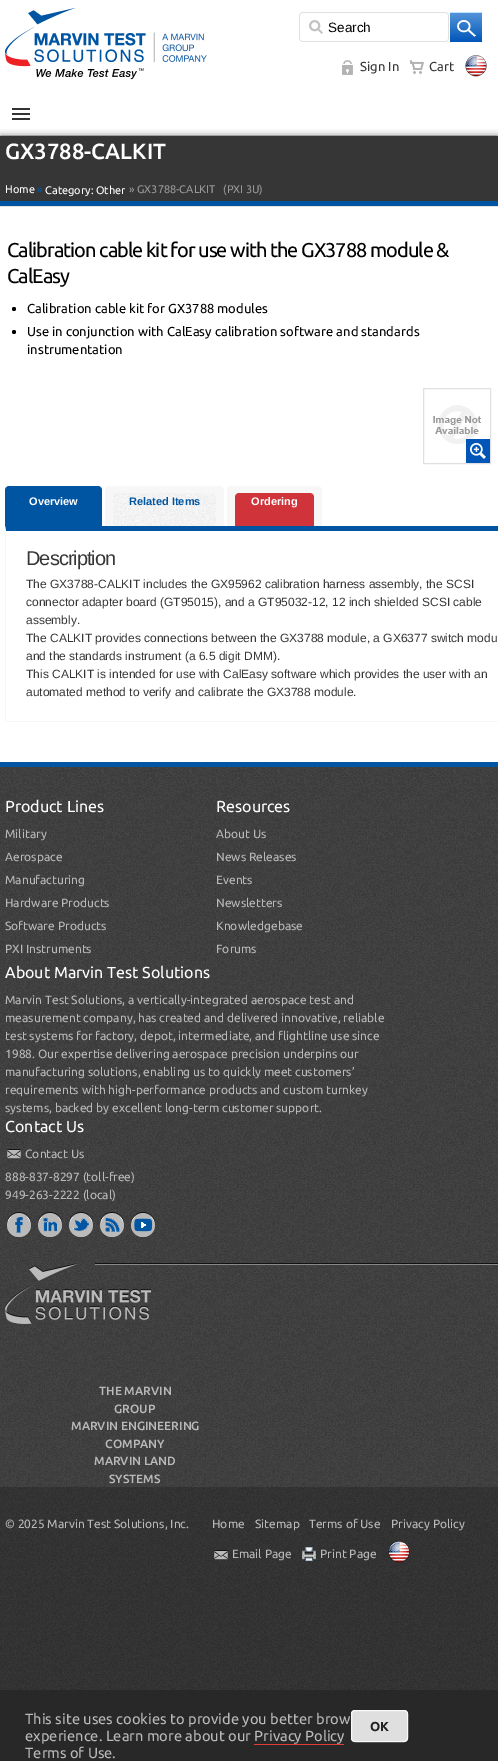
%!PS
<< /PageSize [498 1761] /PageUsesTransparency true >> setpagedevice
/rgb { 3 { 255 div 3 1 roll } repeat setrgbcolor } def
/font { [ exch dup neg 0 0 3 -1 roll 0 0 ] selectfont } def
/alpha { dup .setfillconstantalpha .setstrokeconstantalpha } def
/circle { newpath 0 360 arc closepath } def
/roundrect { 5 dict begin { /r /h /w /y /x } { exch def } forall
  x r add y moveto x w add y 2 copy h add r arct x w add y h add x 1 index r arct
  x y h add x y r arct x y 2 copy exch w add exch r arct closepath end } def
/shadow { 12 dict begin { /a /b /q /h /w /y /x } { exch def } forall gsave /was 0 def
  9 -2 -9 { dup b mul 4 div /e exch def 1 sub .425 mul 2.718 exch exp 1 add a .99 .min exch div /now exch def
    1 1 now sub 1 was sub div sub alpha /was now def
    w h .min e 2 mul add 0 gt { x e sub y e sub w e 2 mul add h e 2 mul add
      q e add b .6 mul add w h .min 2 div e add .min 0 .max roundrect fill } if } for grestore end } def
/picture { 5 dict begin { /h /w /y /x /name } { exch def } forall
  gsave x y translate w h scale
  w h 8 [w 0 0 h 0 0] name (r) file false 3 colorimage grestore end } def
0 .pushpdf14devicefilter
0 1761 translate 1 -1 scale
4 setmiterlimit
255 255 255 rgb
0 0 498 1761 rectfill
(img/1.rgb) 0 1487 498 274 picture
(img/2.rgb) 5 8 202 72 picture
(img/3.rgb) 299 10 150 32 picture
gsave 450 13 moveto 482 13 lineto 482 42 lineto 450 42 lineto closepath clip newpath
<< /ShadingType 2 /ColorSpace /DeviceRGB /Coords [450 12 450 42] /Extend [true true] /Function << /FunctionType 3 /Domain [0 1] /Functions [<< /FunctionType 2 /Domain [0 1] /C0 [0.322 0.573 0.851] /C1 [0.322 0.573 0.851] /N 1 >> << /FunctionType 2 /Domain [0 1] /C0 [0.322 0.573 0.851] /C1 [0 0.337 0.722] /N 1 >>] /Bounds [0.05] /Encode [0 1 0 1] >> >> shfill grestore
190 226 249 rgb
450 12 32 1 rectfill
(img/4.rgb) 457 20 19 17 picture
(img/5.rgb) 342 60 11 15 picture
(img/6.rgb) 409 60 15 14 picture
(img/7.rgb) 465 55 22 22 picture
[
  [12 113 18 2 51 51 51]
  [12 108 18 2 51 51 51]
  [12 118 18 2 51 51 51]
  [0 135 498 1 225 225 225]
] { aload pop rgb rectfill } forall
0 0 0 rgb
1 138 496 68 0 4 1 shadow
[
  [0 136 498 65 54 54 54]
  [0 201 498 5 0 85 162]
  [0 207 498 8 255 255 255]
  [0 206 498 1 225 225 225]
] { aload pop rgb rectfill } forall
0 0 0 rgb
14 309 2 circle fill
14 332 2 circle fill
224 224 224 rgb
423.5 388.5 67 75 rectstroke
(img/8.rgb) 433 405 48 39 picture
(img/9.rgb) 466 439 24 24 picture
0 85 162 rgb
9 486 moveto 98 486 lineto 100 486 102 488 102 490 curveto 102 526 lineto 5 526 lineto 5 490 lineto 5 488 7 486 9 486 curveto closepath fill
247 247 247 rgb
109 486 moveto 220 486 lineto 222 486 224 488 224 490 curveto 224 526 lineto 105 526 lineto 105 490 lineto 105 488 107 486 109 486 curveto closepath fill
(img/10.rgb) 113 493 103 33 picture
231 486 moveto 318 486 lineto 320 486 322 488 322 490 curveto 322 526 lineto 227 526 lineto 227 490 lineto 227 488 229 486 231 486 curveto closepath fill
208 52 58 rgb
239 493 moveto 310 493 lineto 312 493 314 495 314 497 curveto 314 526 lineto 235 526 lineto 235 497 lineto 235 495 237 493 239 493 curveto closepath fill
0 85 162 rgb
5 526 moveto 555 526 lineto 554 531 lineto 6 531 lineto closepath fill
247 247 247 rgb
5 721 493 1 rectfill
5 722 moveto 5 526 lineto 6 531 lineto 6 721 lineto closepath fill
(img/11.rgb) 0 767 498 720 picture
0 86 162 rgb
0 762 498 5 rectfill
(img/12.rgb) 7 1149 14 10 picture
(img/13.rgb) 7 1212 24 25 picture
(img/14.rgb) 38 1212 24 25 picture
(img/15.rgb) 69 1212 24 25 picture
(img/16.rgb) 100 1212 24 25 picture
(img/17.rgb) 131 1212 24 25 picture
(img/18.rgb) 5 1263 493 61 picture
(img/19.rgb) 214 1550 14 10 picture
(img/20.rgb) 302 1547 14 14 picture
(img/21.rgb) 388 1541 22 22 picture
0.85 alpha
38 38 38 rgb
0 1690 498 71 rectfill
1 alpha
223 60 60 rgb
254 1744 90 1 rectfill
0.85 alpha
255 255 255 rgb
351 1710 57 32 4 roundrect fill
351.5 1710.5 56 31 3.5 roundrect stroke
/LiberationSans-Regular 13.5 font
1 alpha
0 0 0 rgb
328 32 moveto (Search) show
/Ubuntu-Regular 13 font
54 54 54 rgb
360 71 moveto (Sign In) show
429 71 moveto (Cart) show
/Ubuntu-Medium 22 font
255 255 255 rgb
5 159 moveto (GX3788-CALKIT) show
/Ubuntu-Regular 11 font
5 193 moveto (Home) show
0 85 162 rgb
37 193 moveto (») show
255 255 255 rgb
45 194 moveto (Category: Other) show
153 153 153 rgb
129 193 moveto (» GX3788-CALKIT) show
223 193 moveto (\(PXI 3U\)) show
/Ubuntu-Regular 20 font
0 0 0 rgb
7 257 moveto -1 0 (Calibration cable kit for use with the GX3788 module &) ashow
7 283 moveto -1 0 (CalEasy) ashow
/Ubuntu-Regular 13 font
[
  [(Calibration cable kit for GX3788 modules) 27 313]
  [(Use in conjunction with CalEasy calibration software and standards) 27 336]
  [(instrumentation) 27 354]
] { aload pop moveto show } forall
/LiberationSans-Bold 11 font
255 255 255 rgb
29 505 moveto (Overview) show
0 85 162 rgb
129 505 moveto (Related Items) show
255 255 255 rgb
251 505 moveto (Ordering) show
/LiberationSans-Regular 20 font
54 54 54 rgb
26 565 moveto -1 0 (Description) ashow
/LiberationSans-Regular 12 font
[
  [(The GX3788-CALKIT includes the GX95962 calibration harness assembly, the SCSI) 26 588]
  [(connector adapter board \(GT95015\), and a GT95032-12, 12 inch shielded SCSI cable) 26 606]
  [(assembly.) 26 624]
  [(The CALKIT provides connections between the GX3788 module, a GX6377 switch modu) 26 642]
  [(and the standards instrument \(a 6.5 digit DMM\).) 26 660]
  [(This CALKIT is intended for use with CalEasy software which provides the user with an) 26 678]
  [(automated method to verify and calibrate the GX3788 module.) 26 696]
] { aload pop moveto show } forall
/Ubuntu-Regular 16 font
255 255 255 rgb
5 812 moveto (Product Lines) show
/Ubuntu-Regular 12 font
185 185 185 rgb
[
  [(Military) 5 838]
  [(Aerospace) 5 861]
  [(Manufacturing) 5 884]
  [(Hardware Products) 5 907]
  [(Software Products) 5 930]
  [(PXI Instruments) 5 953]
] { aload pop moveto show } forall
/Ubuntu-Regular 16 font
255 255 255 rgb
216 812 moveto (Resources) show
/Ubuntu-Regular 12 font
185 185 185 rgb
[
  [(About Us) 216 838]
  [(News Releases) 216 861]
  [(Events) 216 884]
  [(Newsletters) 216 907]
  [(Knowledgebase) 216 930]
  [(Forums) 216 953]
] { aload pop moveto show } forall
/Ubuntu-Regular 16 font
255 255 255 rgb
5 978 moveto (About Marvin Test Solutions) show
/Ubuntu-Regular 12 font
185 185 185 rgb
[
  [(Marvin Test Solutions, a vertically-integrated aerospace test and) 5 1004]
  [(measurement company, has created and delivered innovative, reliable) 5 1022]
  [(test systems for factory, depot, intermediate, and flightline use since) 5 1040]
  [(1988. Our expertise delivering aerospace precision underpins our) 5 1058]
  [(manufacturing solutions, enabling us to quickly meet customers’) 5 1076]
  [(requirements with high-performance products and custom turnkey) 5 1094]
  [(systems, backed by excellent long-term customer support.) 5 1112]
] { aload pop moveto show } forall
/Ubuntu-Regular 16 font
255 255 255 rgb
5 1132 moveto (Contact Us) show
/Ubuntu-Regular 12 font
185 185 185 rgb
[
  [(Contact Us) 25 1158]
  [(888-837-8297 \(toll-free\)) 5 1181]
  [(949-263-2222 \(local\)) 5 1199]
] { aload pop moveto show } forall
/Ubuntu-Medium 12 font
[
  [(THE MARVIN) 99 1395]
  [(GROUP) 114 1413]
  [(MARVIN ENGINEERING) 71 1430]
  [(COMPANY) 105 1448]
  [(MARVIN LAND) 94 1465]
  [(SYSTEMS) 109 1483]
] { aload pop moveto show } forall
/Ubuntu-Regular 12 font
[
  [(© 2025 Marvin Test Solutions, Inc.) 5 1528]
  [(Home) 212 1528]
  [(Sitemap) 255 1528]
  [(Terms of Use) 309 1528]
  [(Privacy Policy) 391 1528]
  [(Email Page) 232 1558]
  [(Print Page) 320 1558]
] { aload pop moveto show } forall
/Ubuntu-Regular 14.7 font
[
  [(This site uses cookies to provide you better brow) 25 1724]
  [(experience. Learn more about our Privacy Policy) 25 1741]
  [(Terms of Use.) 25 1758]
] { aload pop moveto show } forall
/Ubuntu-Bold 13 font
34 34 34 rgb
370 1731 moveto (OK) show
.poppdf14devicefilter showpage
